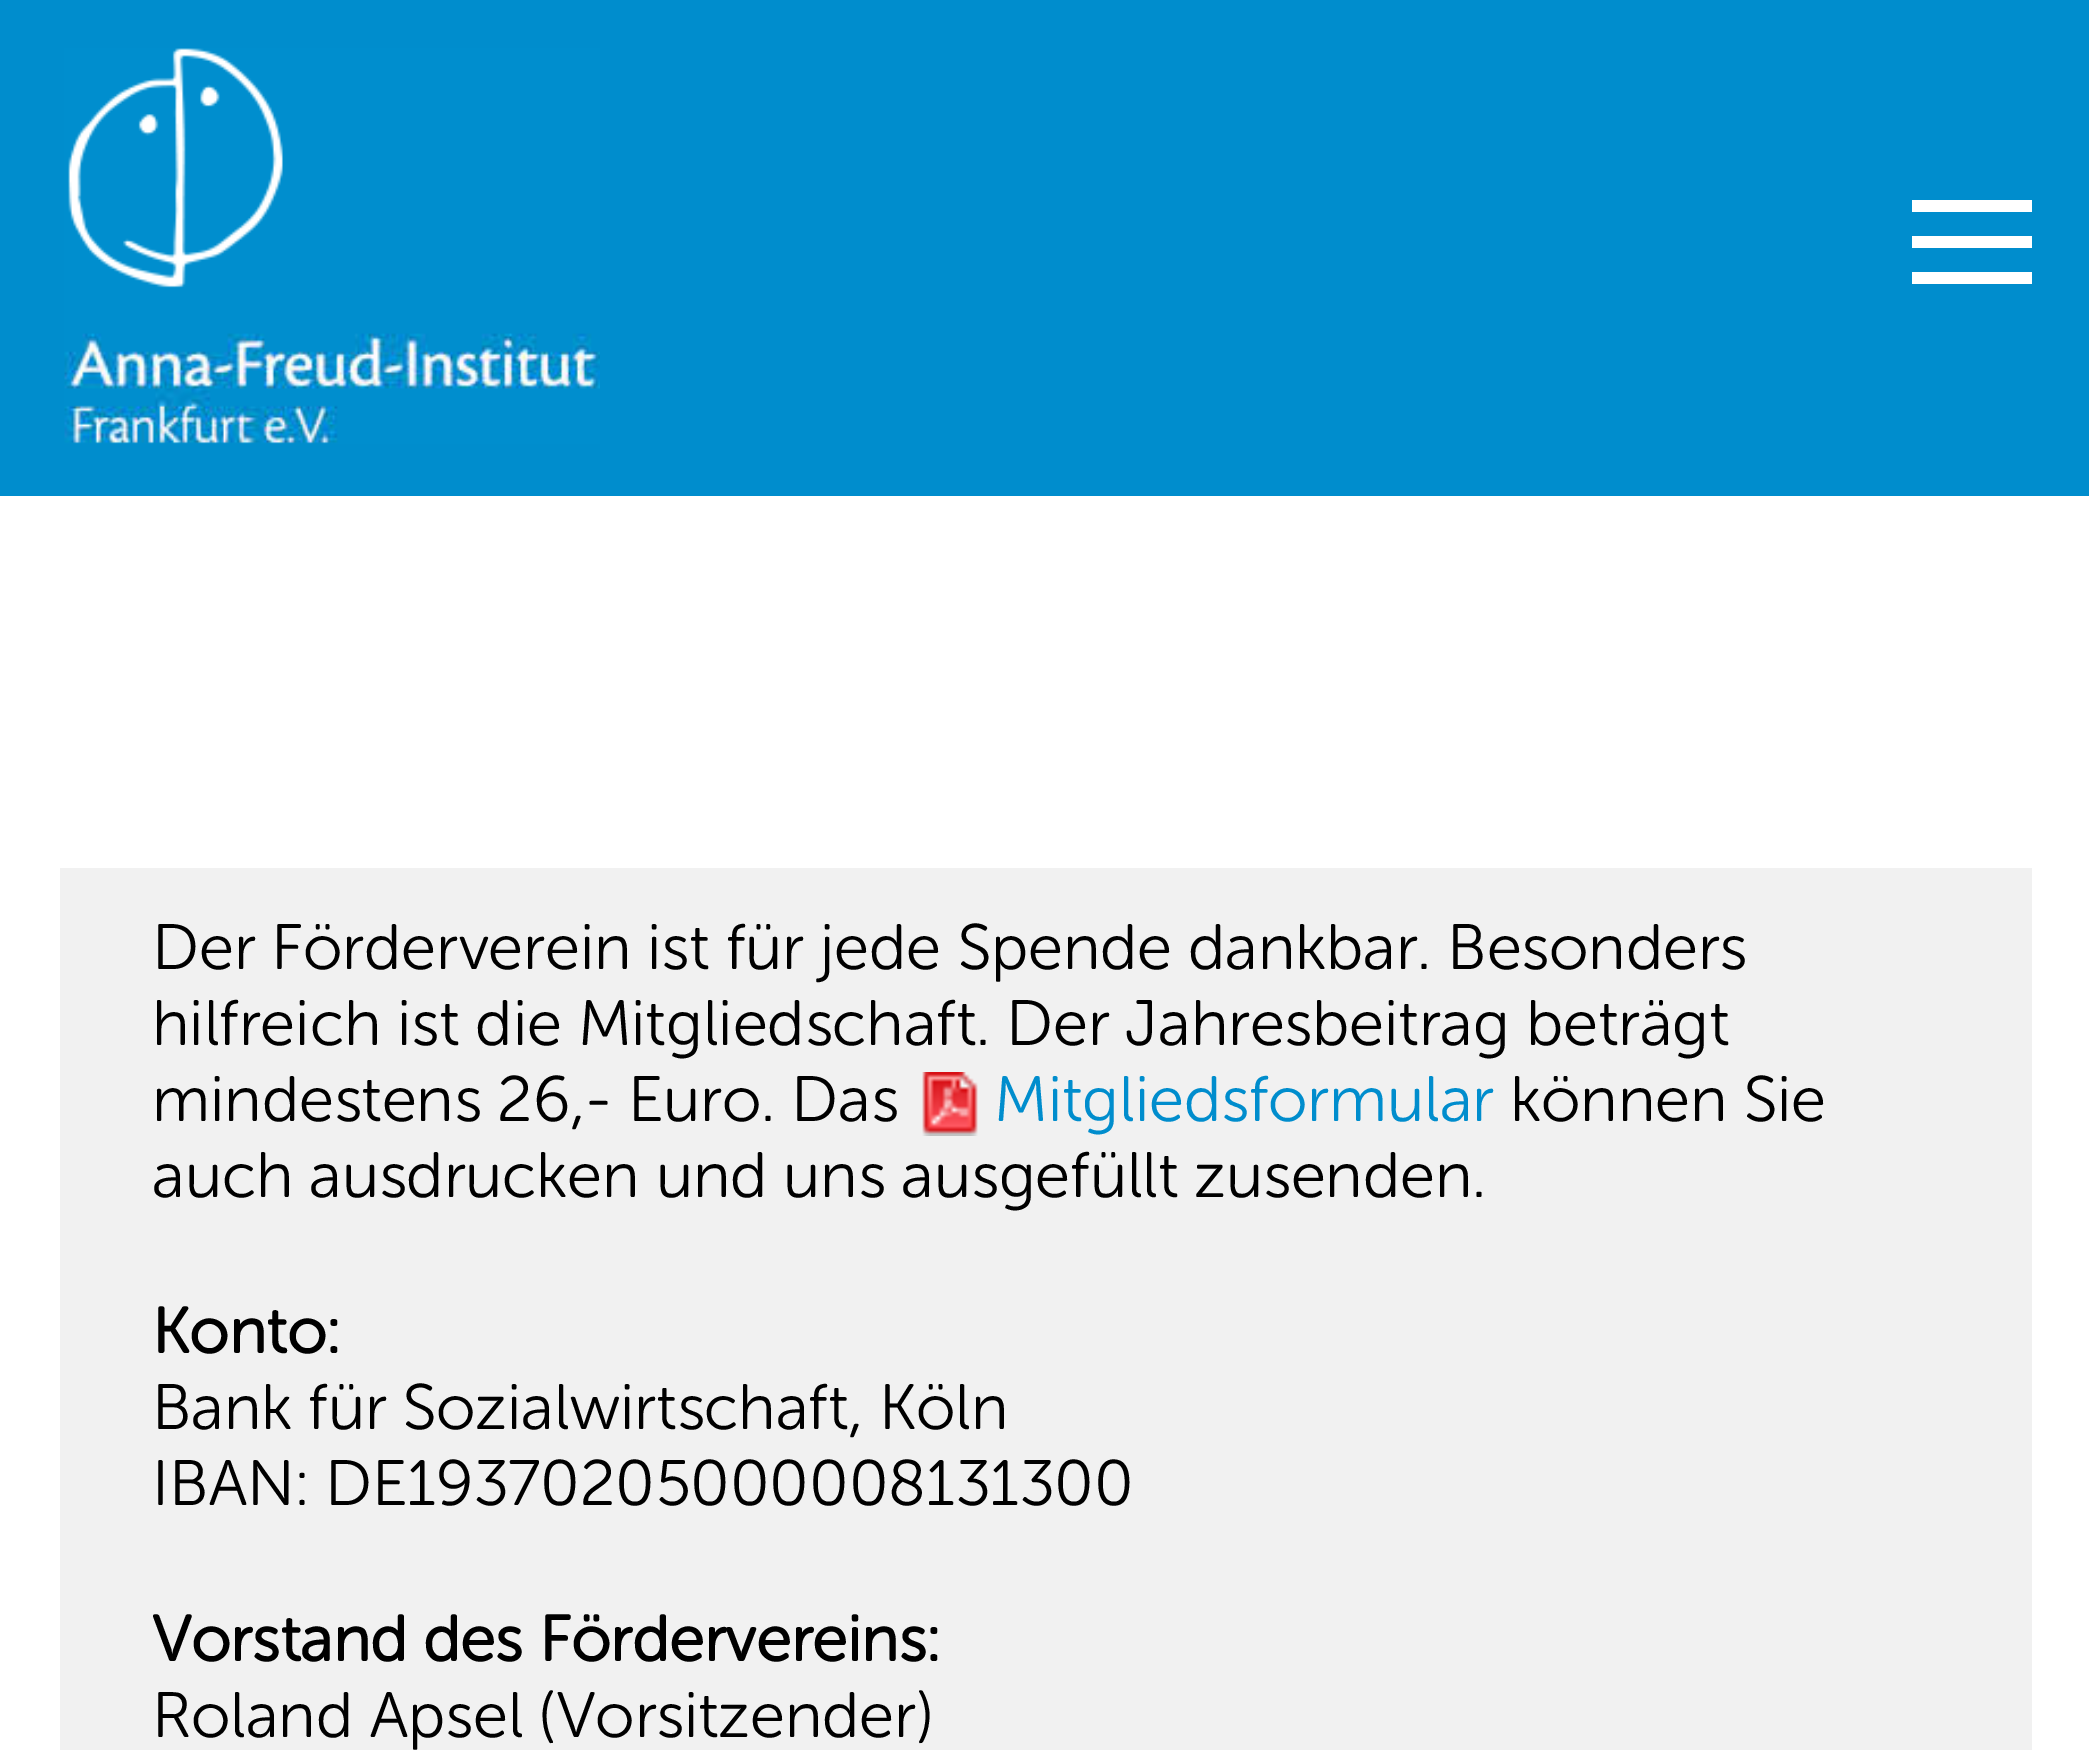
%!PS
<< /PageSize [2089 1750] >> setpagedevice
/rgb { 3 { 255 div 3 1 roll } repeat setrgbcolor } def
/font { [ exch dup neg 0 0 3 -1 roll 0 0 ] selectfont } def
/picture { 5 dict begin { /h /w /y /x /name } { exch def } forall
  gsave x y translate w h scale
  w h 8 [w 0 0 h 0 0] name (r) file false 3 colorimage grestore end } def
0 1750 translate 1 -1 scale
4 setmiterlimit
255 255 255 rgb
0 0 2089 1750 rectfill
0 141 205 rgb
0 0 2089 496 rectfill
(img/1.rgb) 64 48 536 396 picture
[
  [1912 200 120 12 255 255 255]
  [1912 236 120 12 255 255 255]
  [1912 272 120 12 255 255 255]
  [60 868 1972 882 241 241 241]
] { aload pop rgb rectfill } forall
(img/2.rgb) 922 1072 56 64 picture
/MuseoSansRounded-Light 64 font
0 0 0 rgb
[
  [(Der Förderverein ist für jede Spende dankbar. Besonders) 152 969]
  [(hilfreich ist die Mitgliedschaft. Der Jahresbeitrag beträgt) 152 1045]
  [(mindestens 26,- Euro. Das) 152 1121]
] { aload pop moveto show } forall
0 141 205 rgb
994 1121 moveto (Mitgliedsformular) show
0 0 0 rgb
1510 1121 moveto (können Sie) show
152 1197 moveto (auch ausdrucken und uns ausgefüllt zusenden.) show
/MuseoSansRounded-Bold 64 font
152 1353 moveto (Konto:) show
/MuseoSansRounded-Light 64 font
152 1429 moveto (Bank für Sozialwirtschaft, Köln) show
152 1505 moveto (IBAN: DE19370205000008131300) show
/MuseoSansRounded-Bold 64 font
152 1661 moveto (Vorstand des Fördervereins:) show
/MuseoSansRounded-Light 64 font
152 1737 moveto (Roland Apsel \(Vorsitzender\)) show
showpage
